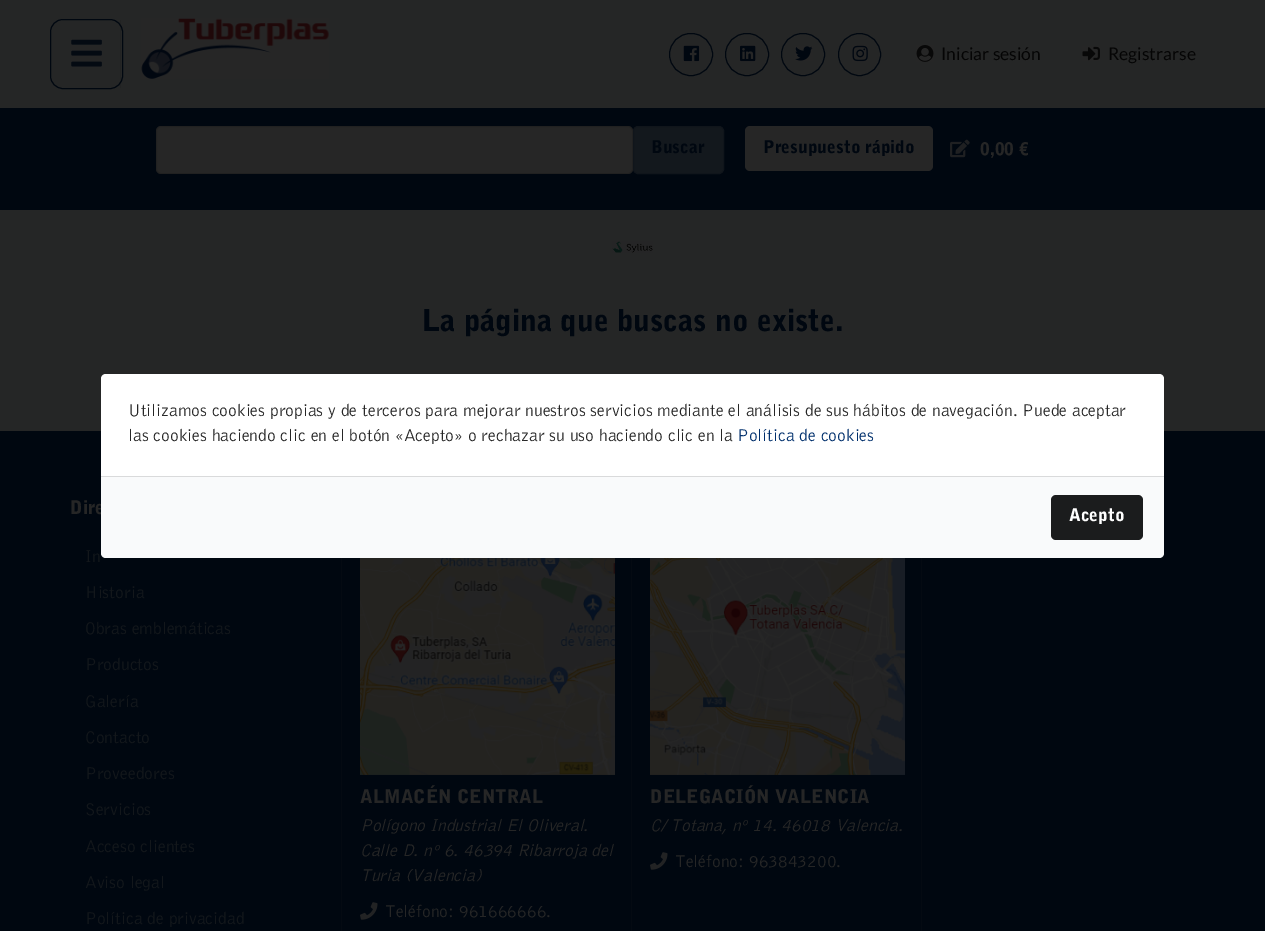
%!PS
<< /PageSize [1265 931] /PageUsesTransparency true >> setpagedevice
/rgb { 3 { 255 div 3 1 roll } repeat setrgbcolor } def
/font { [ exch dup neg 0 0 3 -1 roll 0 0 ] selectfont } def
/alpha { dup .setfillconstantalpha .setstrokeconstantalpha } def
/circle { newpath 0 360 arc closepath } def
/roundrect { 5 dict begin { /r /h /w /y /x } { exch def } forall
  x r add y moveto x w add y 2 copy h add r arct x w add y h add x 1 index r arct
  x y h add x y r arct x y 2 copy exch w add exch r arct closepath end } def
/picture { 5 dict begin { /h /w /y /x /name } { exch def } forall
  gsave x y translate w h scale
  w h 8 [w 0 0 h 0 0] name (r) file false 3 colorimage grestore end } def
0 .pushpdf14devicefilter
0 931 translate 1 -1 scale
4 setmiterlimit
37 38 38 rgb
0 0 1265 931 rectfill
0 7 16 rgb
50.5 19.5 72 69 12.5 roundrect stroke
(img/1.rgb) 71 39 31 28 picture
0.1 alpha
5 5 6 rgb
120 20 1 68 rectfill
1 alpha
(img/2.rgb) 141 18 188 61 picture
0 7 16 rgb
669.5 33.5 43 42 21 roundrect stroke
(img/3.rgb) 683 45 17 17 picture
725.5 33.5 43 42 21 roundrect stroke
(img/4.rgb) 740 45 16 17 picture
781.5 33.5 43 42 21 roundrect stroke
(img/5.rgb) 795 46 18 15 picture
859.5 54.5 21 circle stroke
(img/6.rgb) 852 45 16 17 picture
(img/7.rgb) 916 45 18 17 picture
(img/8.rgb) 1082 46 18 15 picture
0 108 1265 102 rectfill
38 38 38 rgb
156 126 477 48 5 roundrect fill
0.15 alpha
5 5 6 rgb
156.5 126.5 476 47 4.5 roundrect stroke
1 alpha
19 24 29 rgb
633.5 126.5 90 47 4.5 roundrect gsave fill grestore
16 21 27 rgb
stroke
38 38 38 rgb
745 126 188 45 5 roundrect fill
(img/9.rgb) 950 139 20 19 picture
(img/10.rgb) 612 241 41 12 picture
0 7 16 rgb
0 431 1265 500 rectfill
4 10 18 rgb
341 558 1 373 rectfill
(img/11.rgb) 360 558 255 217 picture
(img/12.rgb) 360 902 18 18 picture
631 558 1 373 rectfill
(img/13.rgb) 650 558 255 217 picture
(img/12.rgb) 650 852 18 18 picture
921 558 1 373 rectfill
255 255 255 rgb
106 374 moveto 1159 374 lineto 1162 374 1164 376 1164 379 curveto 1164 476 lineto 101 476 lineto 101 379 lineto 101 376 103 374 106 374 curveto closepath fill
/Lato-Regular 17.5 font
5 5 5 rgb
941 60 moveto (Iniciar sesión) show
1108 60 moveto (Registrarse) show
/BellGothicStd-Black 17.5 font
0 7 16 rgb
651 153 moveto (Buscar) show
763 153 moveto (Presupuesto rápido) show
38 38 38 rgb
980 155 moveto (0,00 €) show
/BellGothicStd-Black 30 font
0 7 16 rgb
422 331 moveto (La página que buscas no existe.) show
/BellGothicStd-Black 18.75 font
38 38 38 rgb
70 514 moveto (Dire) show
/BellGothicStd-Light 17.5 font
19 23 27 rgb
[
  [(In) 85 562]
  [(Historia) 85 598]
  [(Obras emblemáticas) 85 634]
  [(Productos) 85 670]
  [(Galería) 85 707]
  [(Contacto) 85 743]
  [(Proveedores) 85 779]
  [(Servicios) 85 815]
  [(Acceso clientes) 85 852]
  [(Aviso legal) 85 888]
  [(Política de privacidad) 85 924]
] { aload pop moveto show } forall
/BellGothicStd-Black 18.75 font
38 38 38 rgb
360 803 moveto (ALMACÉN CENTRAL) show
/BellGothicStd-LightItalic 17.5 font
[
  [(Polígono Industrial El Oliveral.) 360 831]
  [(Calle D. nº 6. 46394 Ribarroja del) 360 856]
  [(Turia \(Valencia\)) 360 881]
] { aload pop moveto show } forall
/BellGothicStd-Light 17.5 font
385 917 moveto (Teléfono: 961666666.) show
/BellGothicStd-Black 18.75 font
650 803 moveto (DELEGACIÓN VALENCIA) show
/BellGothicStd-LightItalic 17.5 font
650 831 moveto (C/ Totana, nº 14. 46018 Valencia.) show
/BellGothicStd-Light 17.5 font
[
  [(Teléfono: 963843200.) 675 867]
  [(Utilizamos cookies propias y de terceros para mejorar nuestros servicios mediante el análisis de sus hábitos de navegación. Puede aceptar) 128 416]
  [(las cookies haciendo clic en el botón «Acepto» o rechazar su uso haciendo clic en la) 128 441]
] { aload pop moveto show } forall
0 47 108 rgb
737 441 moveto (Política de cookies) show
249 250 251 rgb
101 476 moveto 1164 476 lineto 1164 553 lineto 1164 556 1162 558 1159 558 curveto 106 558 lineto 103 558 101 556 101 553 curveto closepath fill
217 218 219 rgb
101 476 1063 1 rectfill
27 28 29 rgb
1051 495 92 45 5 roundrect fill
/BellGothicStd-Black 17.5 font
255 255 255 rgb
1069 521 moveto (Acepto) show
.poppdf14devicefilter showpage
